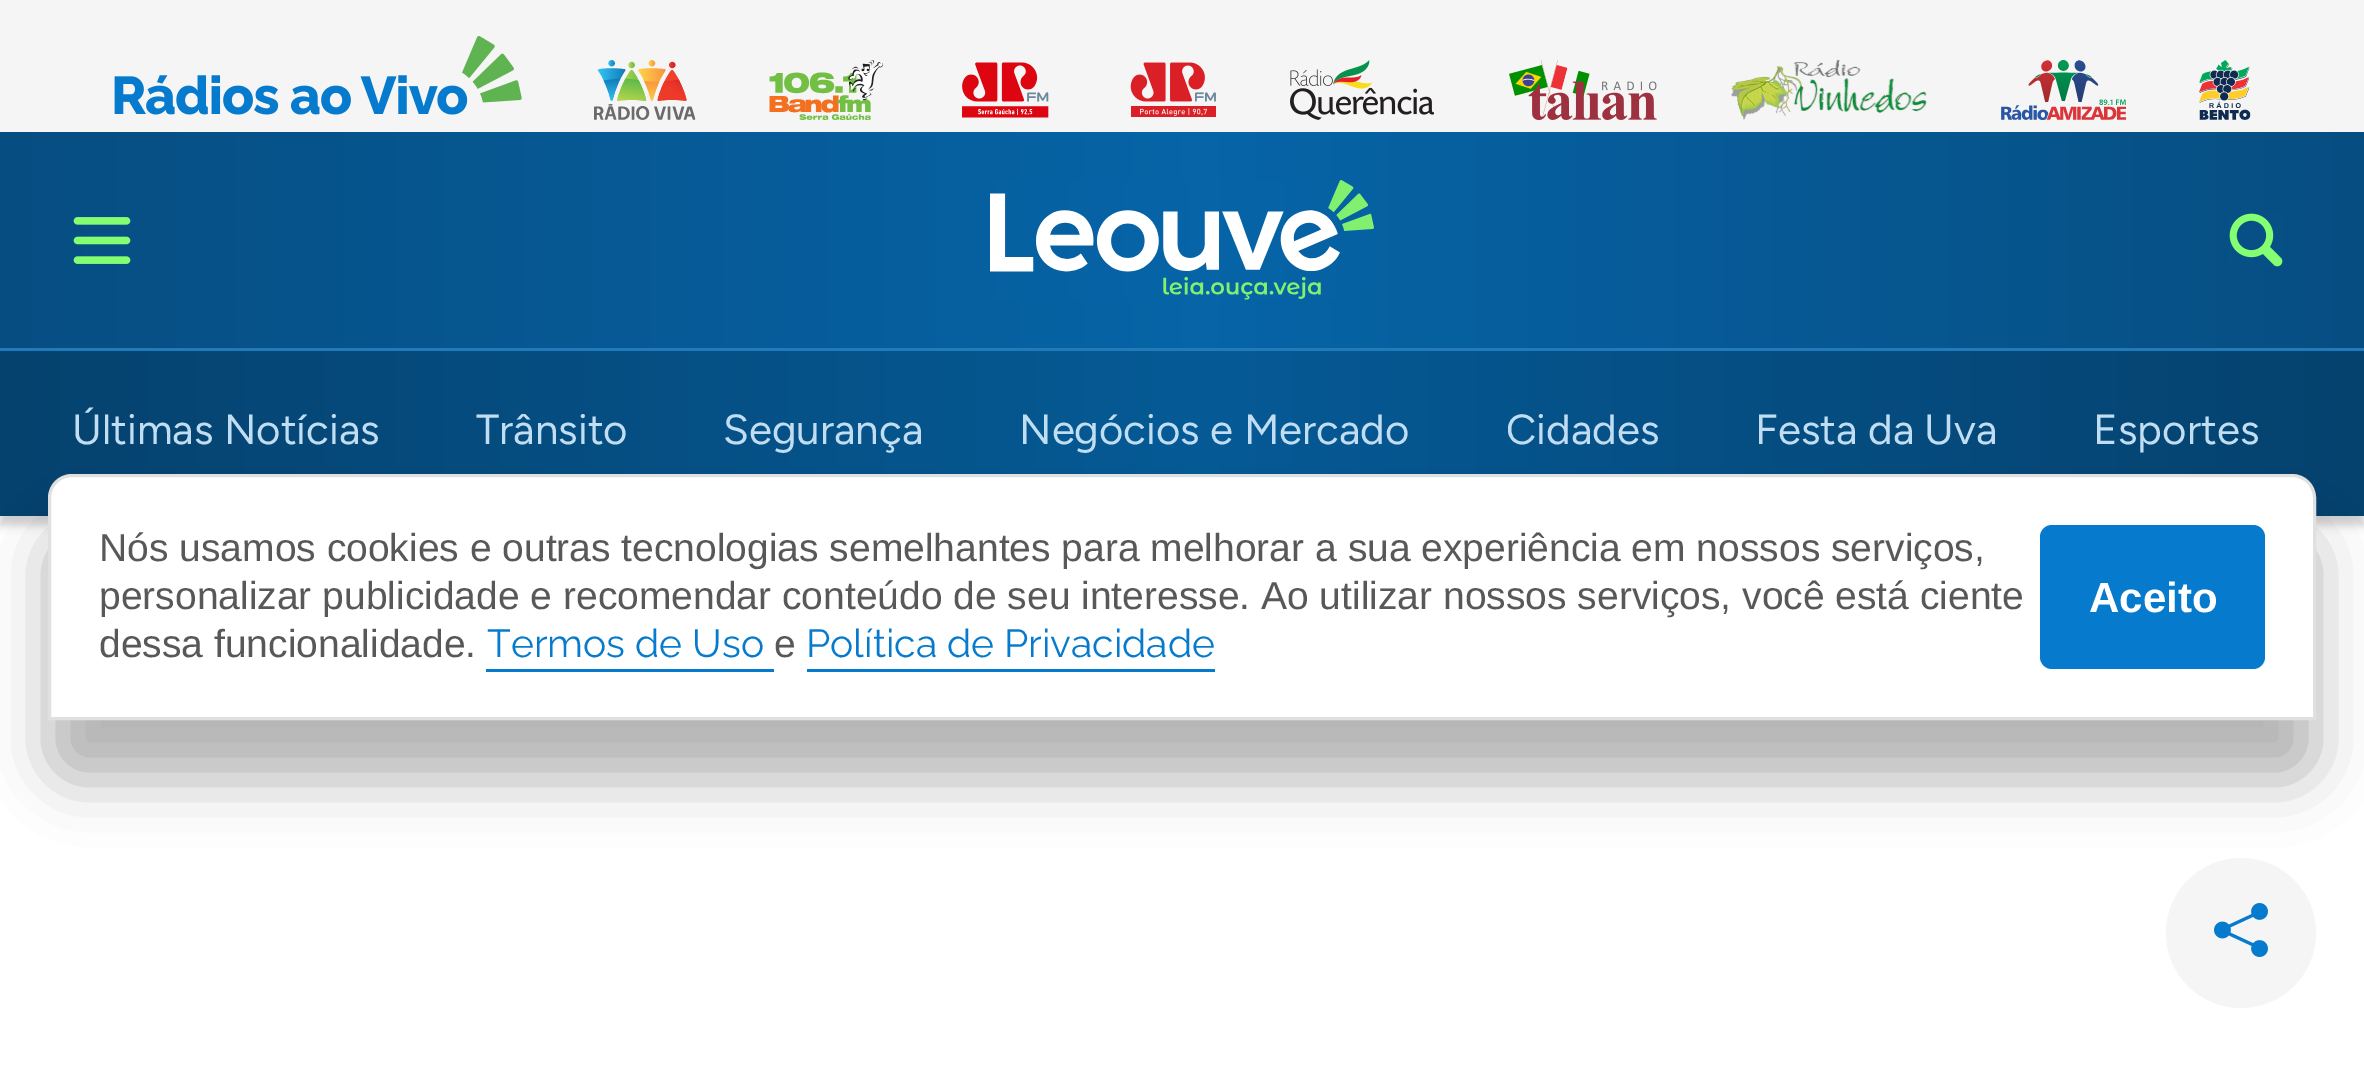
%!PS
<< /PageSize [2364 1080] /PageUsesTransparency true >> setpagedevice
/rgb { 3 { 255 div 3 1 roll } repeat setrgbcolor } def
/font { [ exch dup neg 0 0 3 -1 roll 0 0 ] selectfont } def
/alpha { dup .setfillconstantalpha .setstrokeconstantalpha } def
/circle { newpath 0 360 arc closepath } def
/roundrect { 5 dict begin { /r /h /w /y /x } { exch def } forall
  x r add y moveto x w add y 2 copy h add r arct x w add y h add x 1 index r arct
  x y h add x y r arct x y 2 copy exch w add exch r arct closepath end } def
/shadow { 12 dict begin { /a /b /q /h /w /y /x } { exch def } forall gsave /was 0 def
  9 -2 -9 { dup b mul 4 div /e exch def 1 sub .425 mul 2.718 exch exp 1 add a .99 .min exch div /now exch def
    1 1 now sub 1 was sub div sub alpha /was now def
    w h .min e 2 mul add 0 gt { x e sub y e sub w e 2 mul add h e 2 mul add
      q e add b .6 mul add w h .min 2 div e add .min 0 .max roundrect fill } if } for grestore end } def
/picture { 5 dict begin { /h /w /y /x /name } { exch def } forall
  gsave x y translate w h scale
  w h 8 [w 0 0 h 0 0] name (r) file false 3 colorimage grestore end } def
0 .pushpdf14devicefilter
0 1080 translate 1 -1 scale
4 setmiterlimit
255 255 255 rgb
0 0 2364 1080 rectfill
0 0 0 rgb
0 9 2364 516 0 4.5 0.1 shadow
245 245 245 rgb
0 0 2364 132 rectfill
(img/1.rgb) 114 36 408 79 picture
(img/2.rgb) 594 60 102 60 picture
(img/3.rgb) 769 60 115 60 picture
(img/4.rgb) 962 62 87 56 picture
(img/5.rgb) 1130 62 86 55 picture
(img/6.rgb) 1290 60 144 60 picture
(img/7.rgb) 1509 60 148 60 picture
(img/8.rgb) 1731 60 196 60 picture
(img/9.rgb) 2001 60 126 60 picture
(img/10.rgb) 2199 60 52 60 picture
0 0 0 rgb
0 357 2364 168 0 4.5 0.1 shadow
gsave 0 132 moveto 2364 132 lineto 2364 348 lineto 0 348 lineto closepath clip newpath
<< /ShadingType 2 /ColorSpace /DeviceRGB /Coords [0 240 2364 240] /Extend [true true] /Function << /FunctionType 3 /Domain [0 1] /Functions [<< /FunctionType 2 /Domain [0 1] /C0 [0.024 0.306 0.51] /C1 [0.024 0.392 0.655] /N 1 >> << /FunctionType 2 /Domain [0 1] /C0 [0.024 0.392 0.655] /C1 [0.024 0.306 0.51] /N 1 >>] /Bounds [0.51] /Encode [0 1 0 1] >> >> shfill grestore
(img/11.rgb) 73 217 58 47 picture
(img/12.rgb) 990 180 384 120 picture
(img/13.rgb) 2229 213 54 54 picture
gsave 0 351 moveto 2364 351 lineto 2364 516 lineto 0 516 lineto closepath clip newpath
<< /ShadingType 2 /ColorSpace /DeviceRGB /Coords [0 432 2364 432] /Extend [true true] /Function << /FunctionType 3 /Domain [0 1] /Functions [<< /FunctionType 2 /Domain [0 1] /C0 [0.02 0.259 0.431] /C1 [0.02 0.353 0.588] /N 1 >> << /FunctionType 2 /Domain [0 1] /C0 [0.02 0.353 0.588] /C1 [0.02 0.259 0.431] /N 1 >>] /Bounds [0.51] /Encode [0 1 0 1] >> >> shfill grestore
33 122 186 rgb
0 348 2364 3 rectfill
245 245 245 rgb
2241 933 75 circle fill
0 0 0 rgb
48 534 2268 246 24 30 0.3 shadow
255 255 255 rgb
72 475.5 moveto 2292 475.5 lineto 2304.5 475.5 2314.5 485.5 2314.5 498 curveto 2314.5 718.5 lineto 49.5 718.5 lineto 49.5 498 lineto 49.5 485.5 59.5 475.5 72 475.5 curveto closepath gsave fill grestore
224 224 224 rgb
3 setlinewidth
stroke
6 122 204 rgb
486 669 288 3 rectfill
807 669 408 3 rectfill
2040 525 225 144 12 roundrect fill
(img/14.rgb) 2214 903 54 54 picture
/Figtree-Regular 42 font
192 221 242 rgb
[
  [(Últimas Notícias) 72 444]
  [(Trânsito) 476 444]
  [(Segurança) 723 444]
  [(Negócios e Mercado) 1019 444]
  [(Cidades) 1506 444]
  [(Festa da Uva) 1755 444]
  [(Esportes) 2093 444]
] { aload pop moveto show } forall
/LiberationSans-Regular 39 font
88 88 88 rgb
[
  [(Nós usamos cookies e outras tecnologias semelhantes para melhorar a sua experiência em nossos serviços,) 99 561]
  [(personalizar publicidade e recomendar conteúdo de seu interesse. Ao utilizar nossos serviços, você está ciente) 99 609]
  [(dessa funcionalidade.) 99 657]
] { aload pop moveto show } forall
/Raleway-Regular 39 font
6 122 204 rgb
487 657 moveto (Termos de Uso) show
/LiberationSans-Regular 39 font
88 88 88 rgb
774 657 moveto (e) show
/Raleway-Regular 39 font
6 122 204 rgb
806 657 moveto (Política de Privacidade) show
/LiberationSans-Bold 42 font
255 255 255 rgb
2089 612 moveto (Aceito) show
.poppdf14devicefilter showpage
